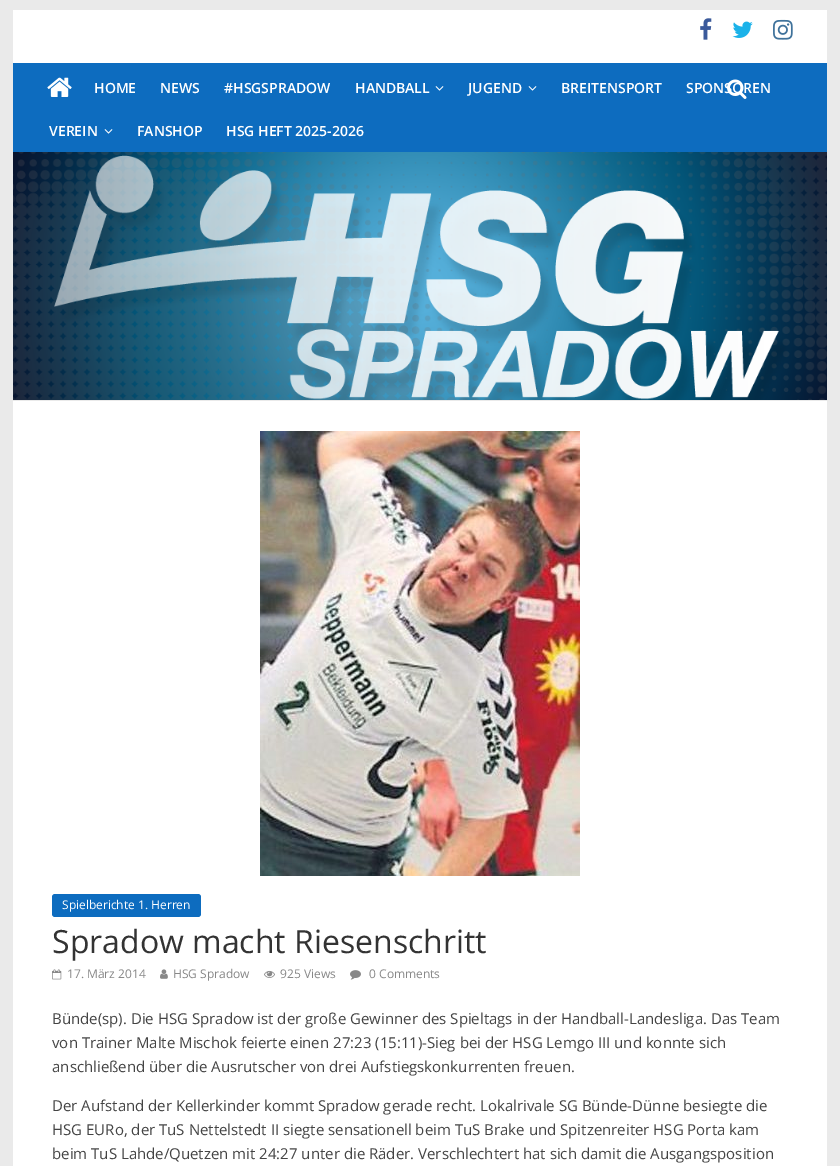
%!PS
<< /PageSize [840 1166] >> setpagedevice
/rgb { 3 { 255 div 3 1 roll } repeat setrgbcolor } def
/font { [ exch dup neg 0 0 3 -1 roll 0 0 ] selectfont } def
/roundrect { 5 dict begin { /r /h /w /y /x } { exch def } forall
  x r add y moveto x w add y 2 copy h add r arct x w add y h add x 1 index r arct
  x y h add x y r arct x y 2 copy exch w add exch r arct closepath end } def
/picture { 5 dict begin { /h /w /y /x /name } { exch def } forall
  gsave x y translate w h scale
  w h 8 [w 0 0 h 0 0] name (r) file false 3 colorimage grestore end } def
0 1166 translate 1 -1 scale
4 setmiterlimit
234 234 234 rgb
0 0 840 1166 rectfill
255 255 255 rgb
13 10 814 53 rectfill
(img/1.rgb) 700 18 12 22 picture
(img/2.rgb) 732 21 21 17 picture
(img/3.rgb) 773 19 20 21 picture
13 108 191 rgb
13 63 814 89 rectfill
(img/4.rgb) 47 77 25 20 picture
(img/6.rgb) 435 86 9 5 picture
(img/6.rgb) 528 86 9 5 picture
(img/6.rgb) 104 129 9 5 picture
(img/7.rgb) 13 152 814 248 picture
255 255 255 rgb
13 401 814 765 rectfill
(img/8.rgb) 260 431 320 445 picture
13 108 191 rgb
52 894 149 23 3 roundrect fill
(img/9.rgb) 52 969 10 11 picture
(img/10.rgb) 160 969 8 10 picture
(img/11.rgb) 264 970 11 8 picture
(img/12.rgb) 350 970 11 10 picture
/OpenSans-SemiBold 14 font
255 255 255 rgb
[
  [(HOME) 94 93]
  [(NEWS) 160 93]
  [(#HSGSPRADOW) 224 93]
  [(HANDBALL) 355 93]
  [(JUGEND) 468 93]
  [(BREITENSPORT) 561 93]
  [(SPONSOREN) 686 93]
] { aload pop moveto show } forall
(img/5.rgb) 727 79 20 20 picture
[
  [(VEREIN) 49 136]
  [(FANSHOP) 137 136]
  [(HSG HEFT 2025-2026) 226 136]
] { aload pop moveto show } forall
/OpenSans-Regular 12 font
62 909 moveto (Spielberichte 1. Herren) show
/OpenSans-Regular 32 font
51 51 51 rgb
52 953 moveto (Spradow macht Riesenschritt) show
/OpenSans-Regular 12 font
136 136 136 rgb
[
  [(17. März 2014) 67 978]
  [(HSG Spradow) 173 978]
  [(925 Views) 280 978]
  [(0 Comments) 369 978]
] { aload pop moveto show } forall
/OpenSans-Regular 15 font
68 68 68 rgb
[
  [(Bünde\(sp\). Die HSG Spradow ist der große Gewinner des Spieltags in der Handball-Landesliga. Das Team) 52 1024]
  [(von Trainer Malte Mischok feierte einen 27:23 \(15:11\)-Sieg bei der HSG Lemgo III und konnte sich) 52 1048]
  [(anschließend über die Ausrutscher von drei Aufstiegskonkurrenten freuen.) 52 1072]
  [(Der Aufstand der Kellerkinder kommt Spradow gerade recht. Lokalrivale SG Bünde-Dünne besiegte die) 52 1111]
  [(HSG EURo, der TuS Nettelstedt II siegte sensationell beim TuS Brake und Spitzenreiter HSG Porta kam) 52 1135]
  [(beim TuS Lahde/Quetzen mit 24:27 unter die Räder. Verschlechtert hat sich damit die Ausgangsposition) 52 1159]
] { aload pop moveto show } forall
showpage
